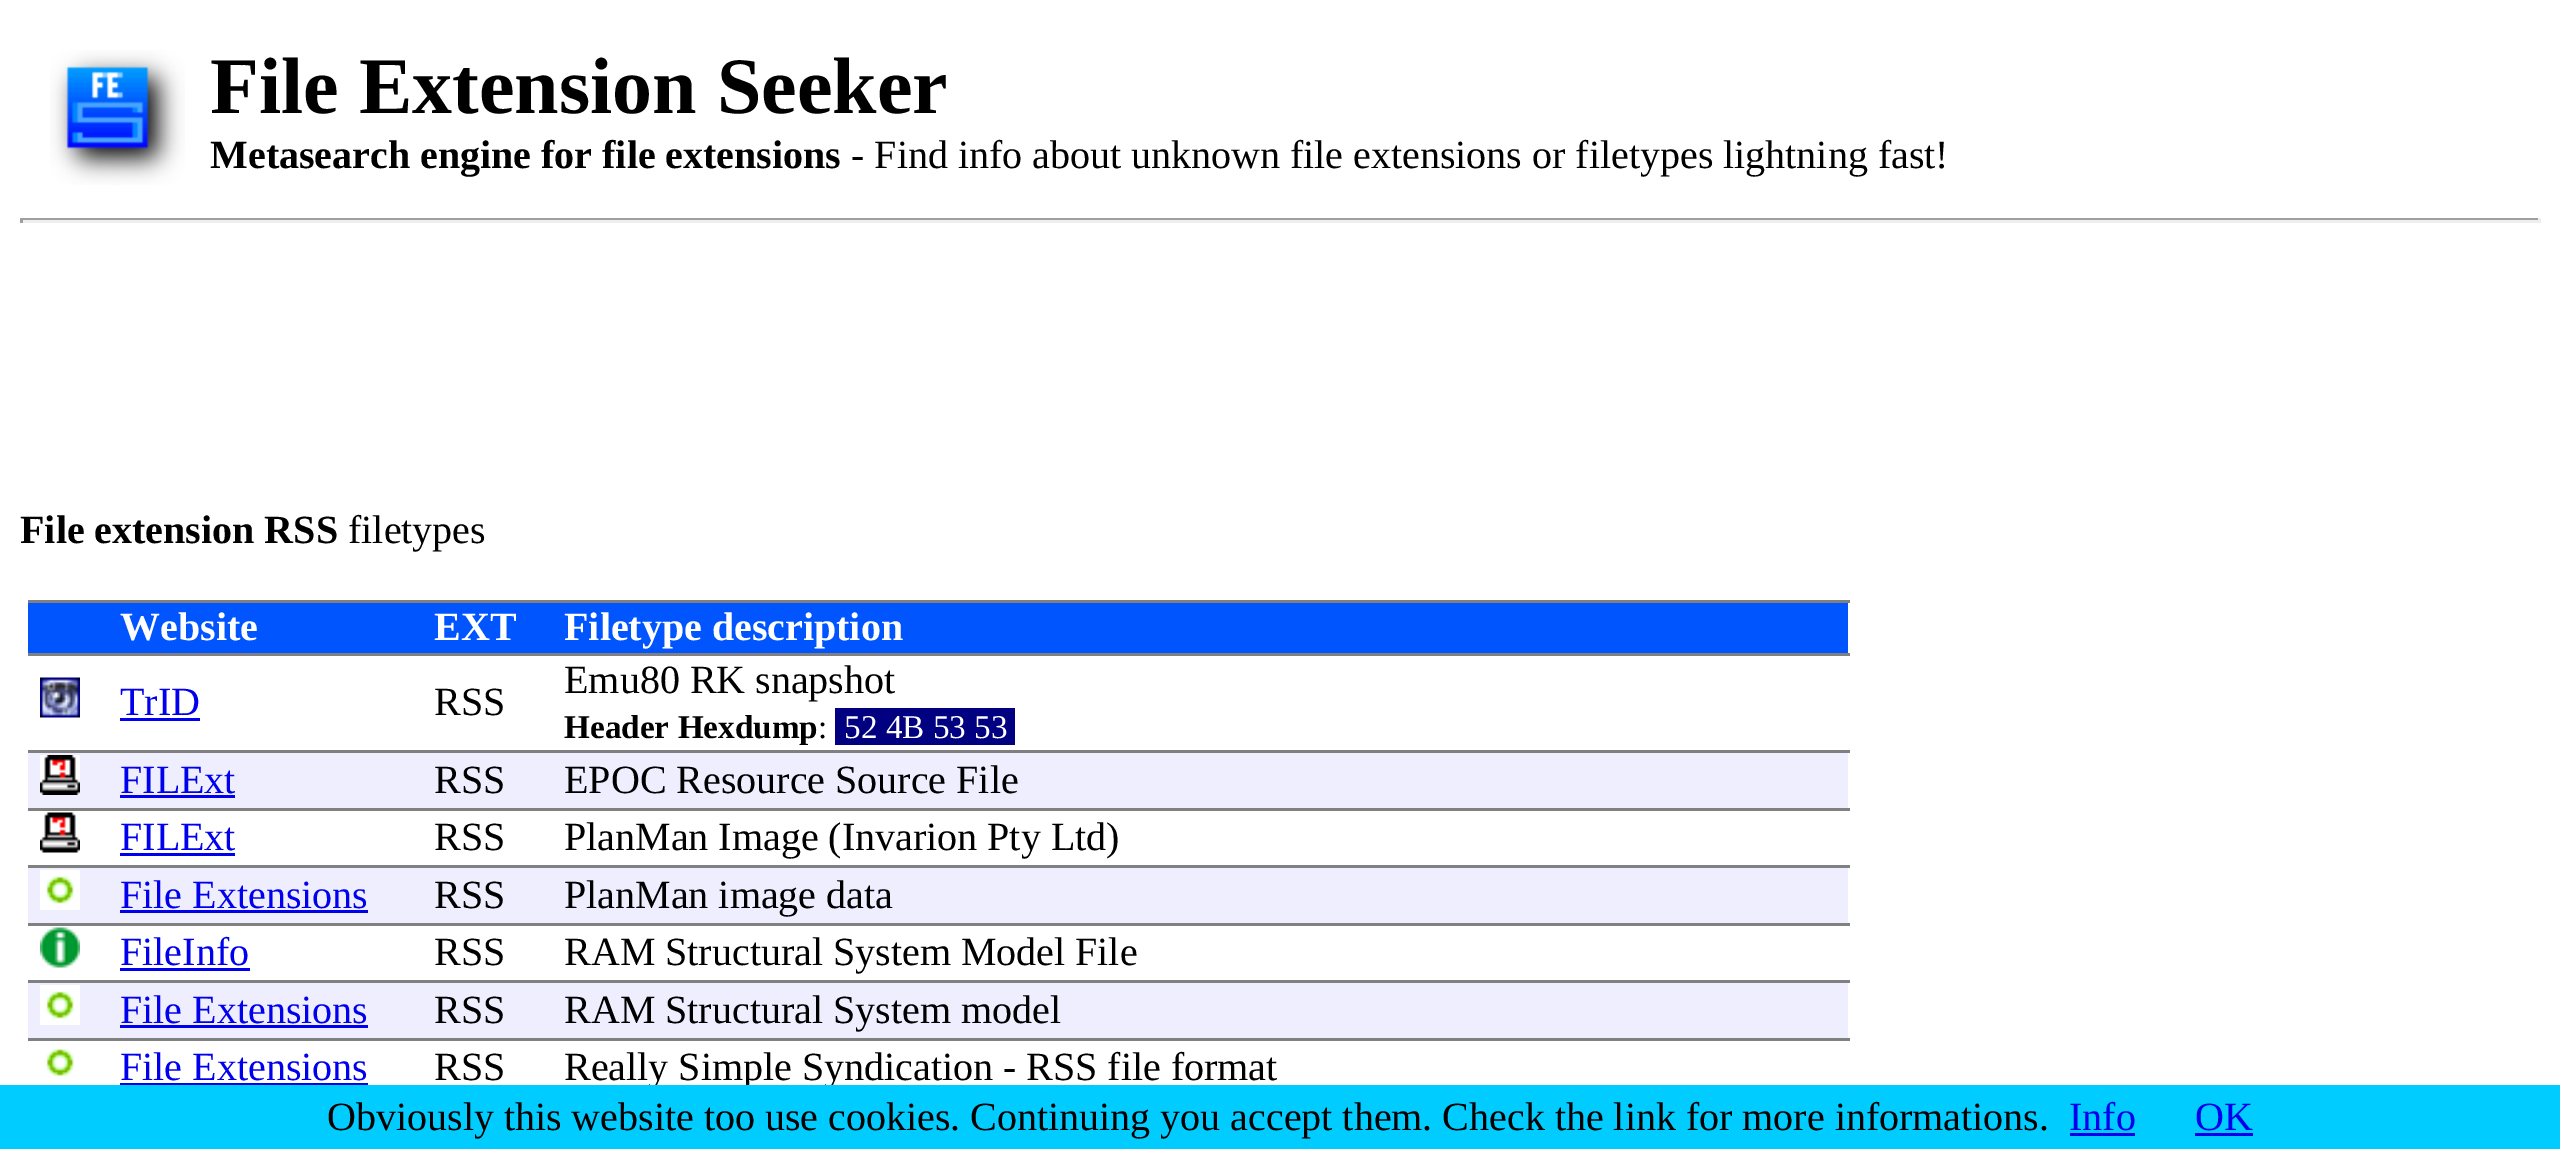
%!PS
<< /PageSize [2560 1149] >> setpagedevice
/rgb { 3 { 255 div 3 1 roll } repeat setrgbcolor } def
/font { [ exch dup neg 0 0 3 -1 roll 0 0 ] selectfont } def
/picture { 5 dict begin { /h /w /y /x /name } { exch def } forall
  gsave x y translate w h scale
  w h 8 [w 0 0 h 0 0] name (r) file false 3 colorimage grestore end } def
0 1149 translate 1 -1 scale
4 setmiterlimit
255 255 255 rgb
0 0 2560 1149 rectfill
(img/1.rgb) 50 50 135 135 picture
[
  [20 218 2520 2 159 159 159]
  [2538 218 3 5 238 238 238]
  [20 220 2520 3 238 238 238]
  [20 218 3 5 159 159 159]
  [28 600 1822 3 128 128 128]
  [28 603 1820 50 0 85 255]
] { aload pop rgb rectfill } forall
(img/2.rgb) 40 677 40 41 picture
[
  [120 718 80 3 0 0 238]
  [28 653 1822 3 128 128 128]
  [835 708 180 37 0 0 128]
  [28 753 1820 55 238 238 255]
] { aload pop rgb rectfill } forall
(img/3.rgb) 40 755 40 40 picture
0 0 238 rgb
120 795 115 3 rectfill
128 128 128 rgb
28 750 1822 3 rectfill
(img/4.rgb) 40 812 40 41 picture
[
  [120 853 115 3 0 0 238]
  [28 808 1822 3 128 128 128]
  [28 868 1820 55 238 238 255]
] { aload pop rgb rectfill } forall
(img/5.rgb) 40 870 40 40 picture
0 0 238 rgb
120 910 248 3 rectfill
128 128 128 rgb
28 865 1822 3 rectfill
(img/6.rgb) 40 927 40 41 picture
[
  [120 968 130 3 0 0 238]
  [28 923 1822 3 128 128 128]
  [28 983 1820 55 238 238 255]
] { aload pop rgb rectfill } forall
(img/5.rgb) 40 985 40 40 picture
0 0 238 rgb
120 1025 248 3 rectfill
128 128 128 rgb
28 980 1822 3 rectfill
(img/7.rgb) 46 1049 28 27 picture
0 0 238 rgb
120 1083 248 2 rectfill
128 128 128 rgb
28 1038 1822 3 rectfill
/LiberationSerif-Bold 80 font
0 0 0 rgb
210 113 moveto (File Extension Seeker) show
/LiberationSerif-Bold 40 font
210 168 moveto (Metasearch engine for file extensions) show
/LiberationSerif-Regular 40 font
851 168 moveto (- Find info about unknown file extensions or filetypes lightning fast!) show
/LiberationSerif-Bold 40 font
20 543 moveto (File extension RSS) show
/LiberationSerif-Regular 40 font
348 543 moveto (filetypes) show
/LiberationSerif-Bold 40 font
255 255 255 rgb
[
  [(Website) 120 640]
  [(EXT) 434 640]
  [(Filetype description) 564 640]
] { aload pop moveto show } forall
/LiberationSerif-Regular 40 font
0 0 238 rgb
120 715 moveto (TrID) show
0 0 0 rgb
434 715 moveto (RSS) show
564 693 moveto (Emu80 RK snapshot) show
/LiberationSerif-Bold 33.25 font
564 738 moveto (Header Hexdump) show
/LiberationSerif-Regular 33.25 font
818 738 moveto (:) show
255 255 255 rgb
844 738 moveto (52 4B 53 53) show
/LiberationSerif-Regular 40 font
0 0 238 rgb
120 793 moveto (FILExt) show
0 0 0 rgb
434 793 moveto (RSS) show
564 793 moveto (EPOC Resource Source File) show
0 0 238 rgb
120 850 moveto (FILExt) show
0 0 0 rgb
434 850 moveto (RSS) show
564 850 moveto (PlanMan Image \(Invarion Pty Ltd\)) show
0 0 238 rgb
120 908 moveto (File Extensions) show
0 0 0 rgb
434 908 moveto (RSS) show
564 908 moveto (PlanMan image data) show
0 0 238 rgb
120 965 moveto (FileInfo) show
0 0 0 rgb
434 965 moveto (RSS) show
564 965 moveto (RAM Structural System Model File) show
0 0 238 rgb
120 1023 moveto (File Extensions) show
0 0 0 rgb
434 1023 moveto (RSS) show
564 1023 moveto (RAM Structural System model) show
0 0 238 rgb
120 1080 moveto (File Extensions) show
0 0 0 rgb
434 1080 moveto (RSS) show
564 1080 moveto (Really Simple Syndication - RSS file format) show
0 204 255 rgb
0 1085 2560 64 rectfill
0 0 0 rgb
327 1130 moveto (Obviously this website too use cookies. Continuing you accept them. Check the link for more informations.) show
0 0 238 rgb
2069 1130 moveto (Info) show
2070 1133 65 3 rectfill
2195 1130 moveto (OK) show
2195 1133 58 3 rectfill
showpage
